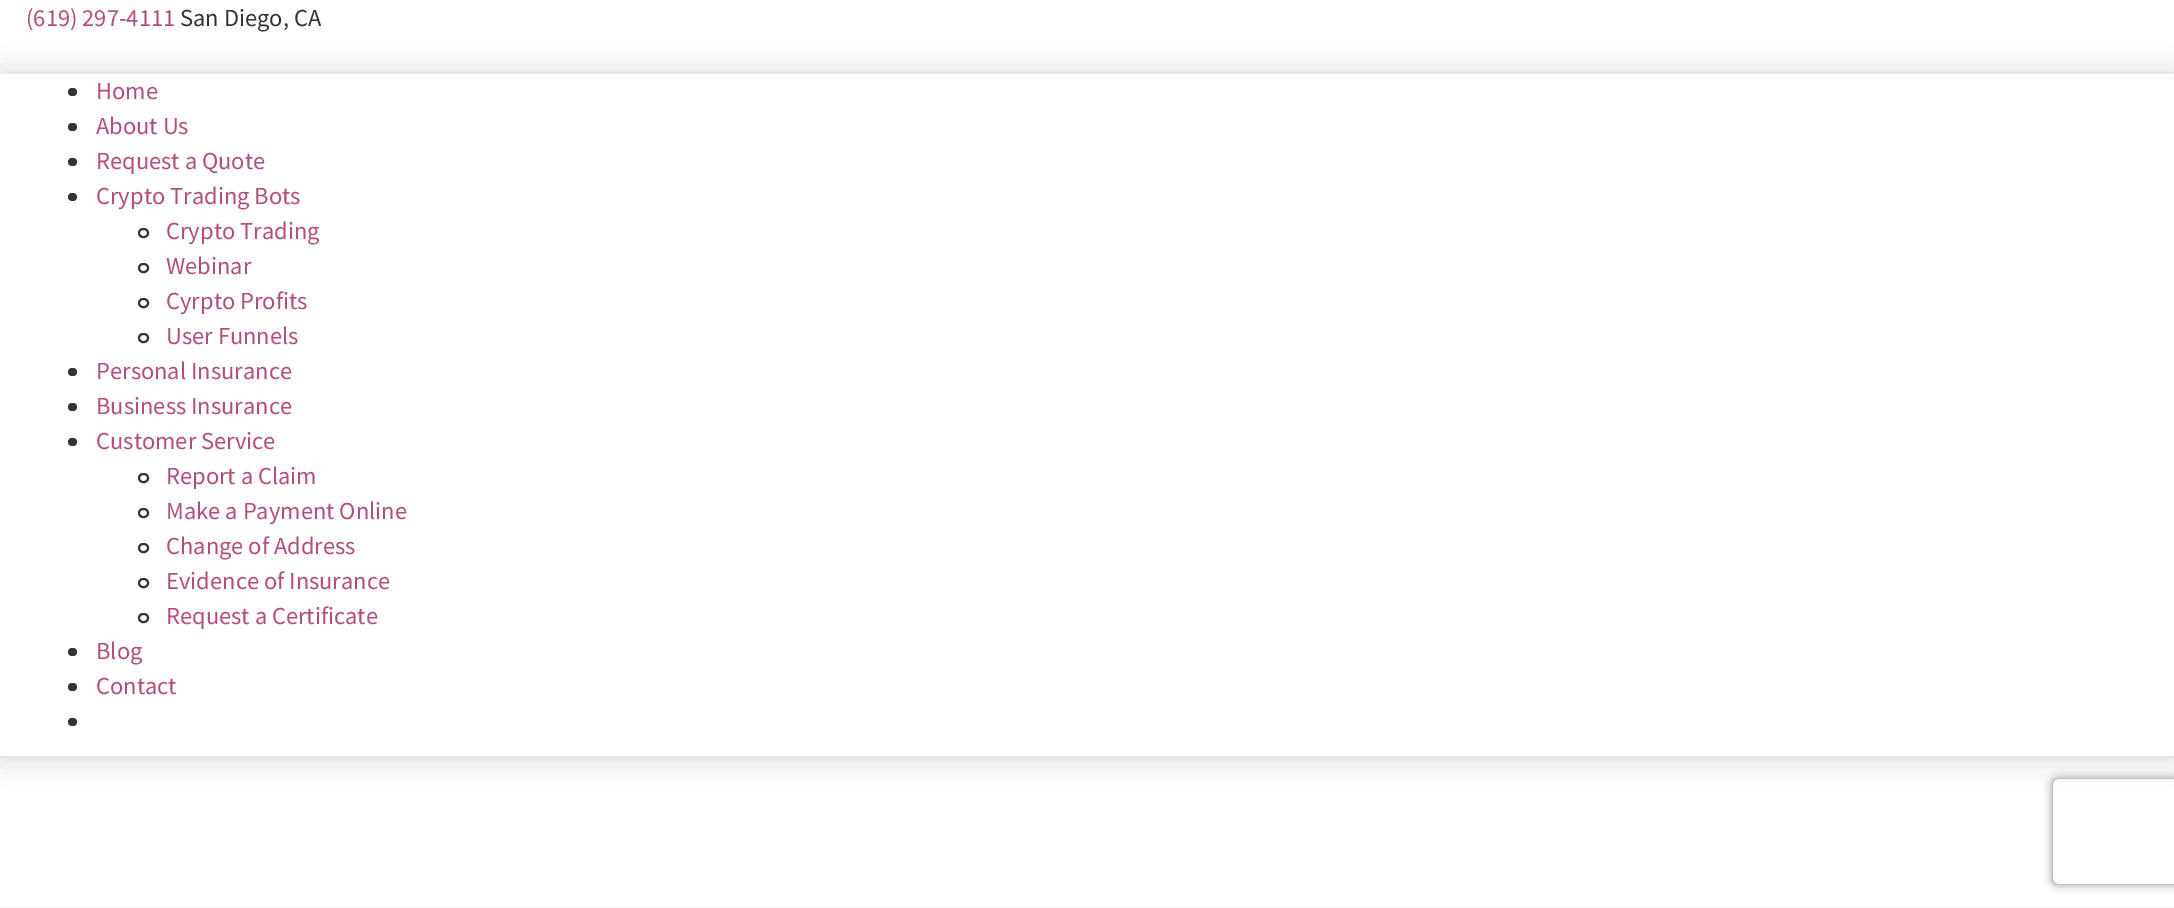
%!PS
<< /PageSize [2174 908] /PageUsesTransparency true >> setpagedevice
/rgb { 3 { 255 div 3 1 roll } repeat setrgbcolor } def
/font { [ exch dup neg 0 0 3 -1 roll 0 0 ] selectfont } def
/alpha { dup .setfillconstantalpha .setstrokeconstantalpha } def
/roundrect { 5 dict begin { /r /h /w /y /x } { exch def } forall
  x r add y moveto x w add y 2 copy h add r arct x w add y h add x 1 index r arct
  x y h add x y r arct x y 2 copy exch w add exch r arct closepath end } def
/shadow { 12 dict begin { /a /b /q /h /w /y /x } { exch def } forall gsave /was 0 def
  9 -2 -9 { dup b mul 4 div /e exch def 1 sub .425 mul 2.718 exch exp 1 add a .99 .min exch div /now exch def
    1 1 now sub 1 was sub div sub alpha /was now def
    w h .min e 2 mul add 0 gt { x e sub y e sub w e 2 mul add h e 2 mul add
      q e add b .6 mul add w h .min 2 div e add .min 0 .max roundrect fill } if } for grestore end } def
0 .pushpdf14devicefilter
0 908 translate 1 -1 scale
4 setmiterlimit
255 255 255 rgb
0 0 2174 908 rectfill
gsave
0 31 moveto 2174 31 lineto 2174 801 lineto 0 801 lineto closepath 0 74 moveto 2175 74 lineto 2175 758 lineto 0 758 lineto closepath eoclip newpath
0 0 0 rgb
0 74 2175 684 0 14 0.18 shadow
grestore
228 228 228 rgb
0 756 2174 2 rectfill
51 51 51 rgb
68 88 9 8 4 roundrect fill
68 123 9 8 4 roundrect fill
68 158 9 8 4 roundrect fill
68 193 9 8 4 roundrect fill
2 setlinewidth
139 229 9 8 4 roundrect stroke
139 264 9 8 4 roundrect stroke
139 299 9 8 4 roundrect stroke
139 334 9 8 4 roundrect stroke
68 368 9 8 4 roundrect fill
68 403 9 8 4 roundrect fill
68 438 9 8 4 roundrect fill
139 474 9 8 4 roundrect stroke
139 509 9 8 4 roundrect stroke
139 544 9 8 4 roundrect stroke
139 579 9 8 4 roundrect stroke
139 614 9 8 4 roundrect stroke
68 648 9 8 4 roundrect fill
68 683 9 8 4 roundrect fill
68 718 9 8 4 roundrect fill
gsave
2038 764 moveto 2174 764 lineto 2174 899 lineto 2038 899 lineto closepath 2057 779 moveto 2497 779 lineto 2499 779 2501 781 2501 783 curveto 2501 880 lineto 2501 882 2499 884 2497 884 curveto 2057 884 lineto 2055 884 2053 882 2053 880 curveto 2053 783 lineto 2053 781 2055 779 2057 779 curveto closepath eoclip newpath
128 128 128 rgb
2053 779 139 105 4 4.5 1 shadow
grestore
246 246 246 rgb
0 907 2174 1 rectfill
/SourceSansPro-Regular 24.5 font
179 77 127 rgb
26 26 moveto (\(619\) 297-4111) show
51 51 51 rgb
180 26 moveto (San Diego, CA) show
179 77 127 rgb
[
  [(Home) 96 99]
  [(About Us) 96 134]
  [(Request a Quote) 96 169]
  [(Crypto Trading Bots) 96 204]
  [(Crypto Trading) 166 239]
  [(Webinar) 166 274]
  [(Cyrpto Profits) 166 309]
  [(User Funnels) 166 344]
  [(Personal Insurance) 96 379]
  [(Business Insurance) 96 414]
  [(Customer Service) 96 449]
  [(Report a Claim) 166 484]
  [(Make a Payment Online) 166 519]
  [(Change of Address) 166 554]
  [(Evidence of Insurance) 166 589]
  [(Request a Certificate) 166 624]
  [(Blog) 96 659]
  [(Contact) 96 694]
] { aload pop moveto show } forall
.poppdf14devicefilter showpage
